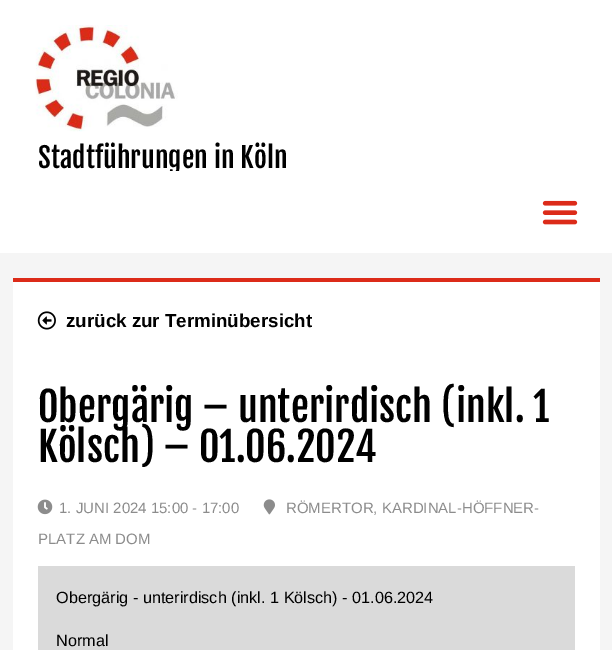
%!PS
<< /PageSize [612 650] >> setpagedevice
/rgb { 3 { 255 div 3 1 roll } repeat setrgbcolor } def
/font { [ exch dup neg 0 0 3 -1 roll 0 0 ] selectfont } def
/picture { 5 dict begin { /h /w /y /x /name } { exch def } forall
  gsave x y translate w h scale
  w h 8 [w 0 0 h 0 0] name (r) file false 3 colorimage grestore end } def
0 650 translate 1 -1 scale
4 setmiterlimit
245 245 245 rgb
0 0 612 650 rectfill
255 255 255 rgb
0 0 612 171 rectfill
(img/1.rgb) 35 25 143 107 picture
13 282 587 368 rectfill
220 43 25 rgb
13 278 587 4 rectfill
(img/3.rgb) 37 311 19 19 picture
(img/4.rgb) 263 499 12 16 picture
(img/5.rgb) 37 499 16 16 picture
218 218 218 rgb
38 566 537 84 rectfill
/FjallaOne-Regular 27.5 font
0 0 0 rgb
38 168 moveto (Stadtführungen in Köln) show
255 255 255 rgb
0 171 612 82 rectfill
(img/2.rgb) 542 200 36 25 picture
/LiberationSans-Bold 18.75 font
0 0 0 rgb
66 327 moveto (zurück zur Terminübersicht) show
/FjallaOne-Regular 40 font
38 422 moveto (Obergärig – unterirdisch \(inkl. 1) show
38 462 moveto (Kölsch\) – 01.06.2024) show
/LiberationSans-Regular 15 font
140 140 140 rgb
[
  [(RÖMERTOR, KARDINAL-HÖFFNER-) 286 513]
  [(PLATZ AM DOM) 38 544]
  [(1. JUNI 2024 15:00 - 17:00) 59 513]
] { aload pop moveto show } forall
/LiberationSans-Regular 16.25 font
0 0 0 rgb
56 603 moveto (Obergärig - unterirdisch \(inkl. 1 Kölsch\) - 01.06.2024) show
56 646 moveto (Normal) show
showpage
